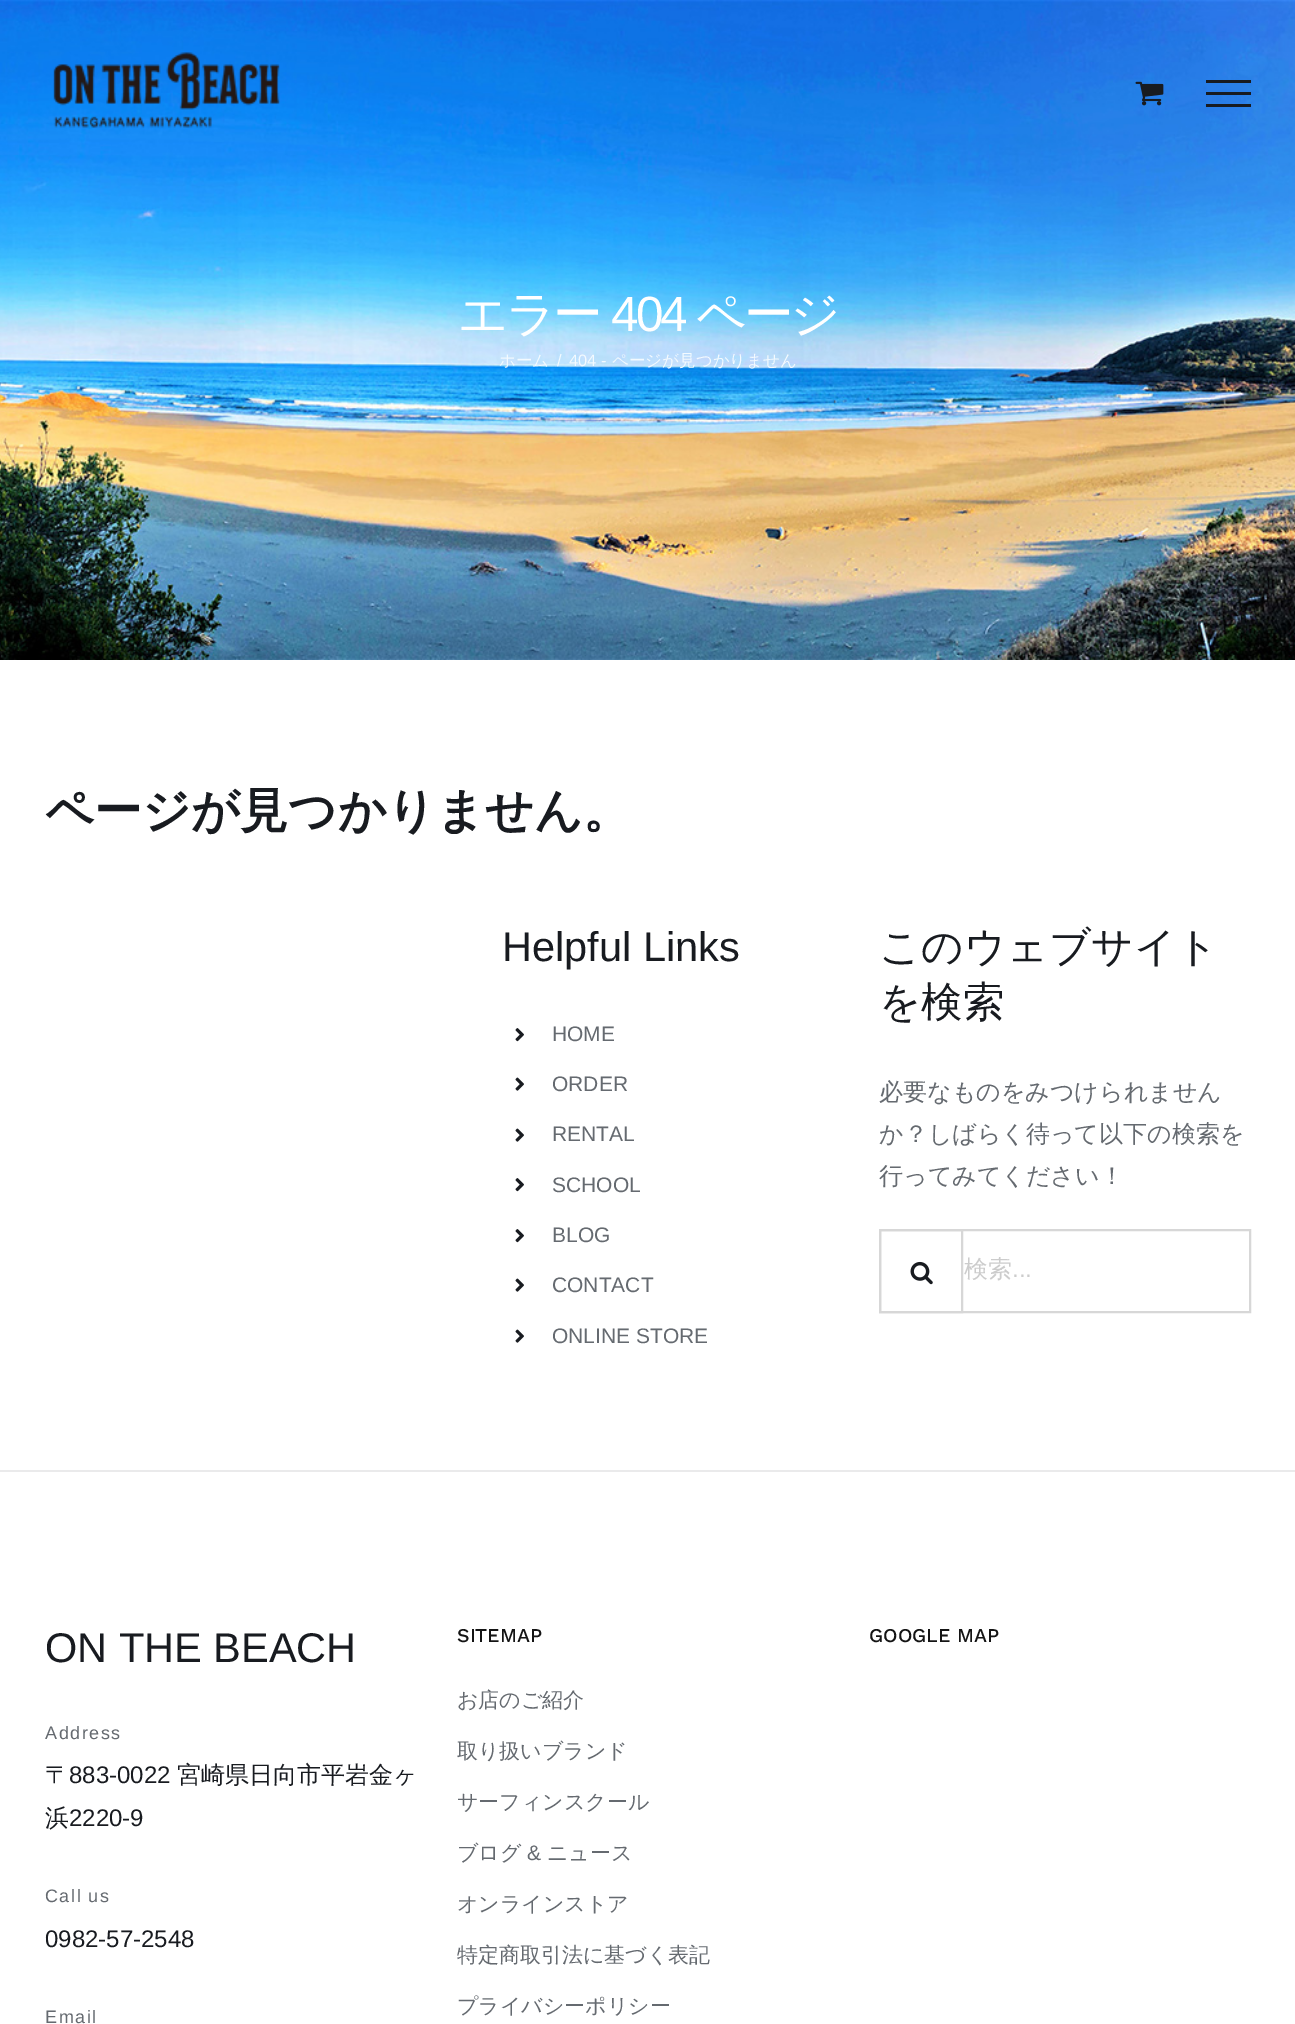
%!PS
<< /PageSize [1295 2024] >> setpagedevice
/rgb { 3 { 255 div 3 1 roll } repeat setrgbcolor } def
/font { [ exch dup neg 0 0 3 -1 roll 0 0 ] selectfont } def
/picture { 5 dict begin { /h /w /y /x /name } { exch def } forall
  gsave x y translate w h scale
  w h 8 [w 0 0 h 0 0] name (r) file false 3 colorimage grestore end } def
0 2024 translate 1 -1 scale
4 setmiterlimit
255 255 255 rgb
0 0 1295 2024 rectfill
(img/3.rgb) 0 0 1295 660 picture
(img/1.rgb) 53 52 227 76 picture
(img/2.rgb) 1135 81 29 25 picture
[
  [1206 80 45 3 24 27 32]
  [1206 92 45 3 24 27 32]
  [1206 104 45 3 24 27 32]
] { aload pop rgb rectfill } forall
(img/4.rgb) 515 1028 9 14 picture
(img/5.rgb) 515 1077 9 14 picture
(img/5.rgb) 515 1128 9 14 picture
(img/4.rgb) 515 1178 9 14 picture
(img/4.rgb) 515 1229 9 14 picture
(img/5.rgb) 515 1278 9 14 picture
(img/5.rgb) 515 1329 9 14 picture
215 215 215 rgb
2 setlinewidth
880 1230 370 82 rectstroke
880 1230 82 82 rectstroke
(img/6.rgb) 910 1261 23 24 picture
234 234 235 rgb
0 1470 1295 2 rectfill
/WenQuanYiZenHei-Medium 49.5 font
255 255 255 rgb
458 331 moveto -3 0 (エラー) ashow
/LiberationSans-Regular 49.5 font
611 331 moveto -3 0 (404) ashow
/WenQuanYiZenHei-Medium 49.5 font
696 331 moveto -3 0 (ページ) ashow
/WenQuanYiZenHei-Medium 16.5 font
243 250 255 rgb
499 366 moveto (ホーム) show
/LiberationSans-Regular 16.5 font
557 366 moveto (/) show
569 366 moveto (404 -) show
/WenQuanYiZenHei-Medium 16.5 font
612 366 moveto (ページが見つかりません) show
/WenQuanYiZenHei-Bold 48 font
24 27 32 rgb
45 827 moveto (ページが見つかりません。) show
/LiberationSans-Regular 41.5 font
502 961 moveto (Helpful Links) show
/LiberationSans-Regular 21 font
101 106 112 rgb
[
  [(HOME) 552 1041]
  [(ORDER) 552 1091]
  [(RENTAL) 552 1141]
  [(SCHOOL) 552 1192]
  [(BLOG) 552 1242]
  [(CONTACT) 552 1292]
  [(ONLINE STORE) 552 1343]
] { aload pop moveto show } forall
/WenQuanYiZenHei-Medium 41.5 font
24 27 32 rgb
879 961 moveto (このウェブサイト) show
879 1016 moveto (を検索) show
/WenQuanYiZenHei-Medium 24 font
101 106 112 rgb
[
  [(必要なものをみつけられません) 879 1100]
  [(か？しばらく待って以下の検索を) 879 1142]
  [(行ってみてください！) 879 1184]
] { aload pop moveto show } forall
204 204 204 rgb
964 1277 moveto (検索) show
/LiberationSans-Regular 24 font
1012 1277 moveto (...) show
/LiberationSans-Regular 41.5 font
24 27 32 rgb
45 1662 moveto (ON THE BEACH) show
/LiberationSans-Regular 18 font
101 106 112 rgb
45 1739 moveto 1.5 0 (Address) ashow
/WenQuanYiZenHei-Medium 24 font
24 27 32 rgb
45 1783 moveto (〒) show
/LiberationSans-Regular 24 font
69 1783 moveto (883-0022) show
/WenQuanYiZenHei-Medium 24 font
177 1783 moveto (宮崎県日向市平岩金ヶ) show
45 1826 moveto (浜) show
/LiberationSans-Regular 24 font
69 1826 moveto (2220-9) show
/LiberationSans-Regular 18 font
101 106 112 rgb
45 1902 moveto 1.5 0 (Call us) ashow
/LiberationSans-Regular 24 font
24 27 32 rgb
45 1947 moveto (0982-57-2548) show
/LiberationSans-Regular 18 font
101 106 112 rgb
45 2023 moveto 1.5 0 (Email) ashow
/WorkSans-Medium 19.5 font
20 20 20 rgb
457 1642 moveto (SITEMAP) show
/WenQuanYiZenHei-Medium 21 font
101 106 112 rgb
[
  [(お店のご紹介) 457 1707]
  [(取り扱いブランド) 457 1758]
  [(サーフィンスクール) 457 1809]
  [(ブログ) 457 1860]
] { aload pop moveto show } forall
/LiberationSans-Regular 21 font
527 1860 moveto (&) show
/WenQuanYiZenHei-Medium 21 font
[
  [(ニュース) 547 1860]
  [(オンラインストア) 457 1911]
  [(特定商取引法に基づく表記) 457 1962]
  [(プライバシーポリシー) 457 2013]
] { aload pop moveto show } forall
/WorkSans-Medium 19.5 font
20 20 20 rgb
869 1642 moveto (GOOGLE MAP) show
showpage
